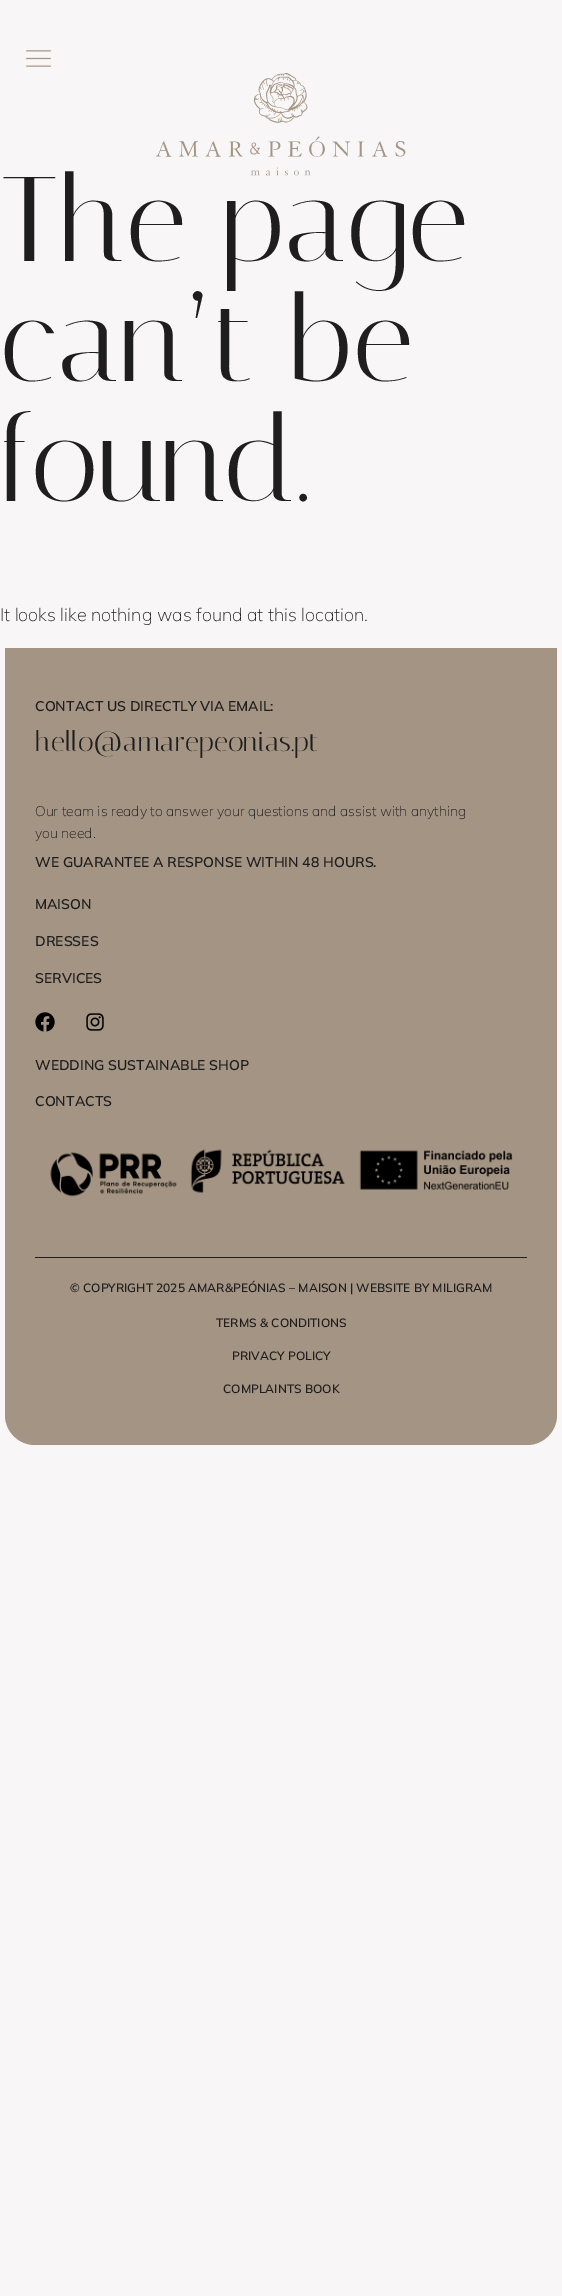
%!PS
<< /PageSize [562 2296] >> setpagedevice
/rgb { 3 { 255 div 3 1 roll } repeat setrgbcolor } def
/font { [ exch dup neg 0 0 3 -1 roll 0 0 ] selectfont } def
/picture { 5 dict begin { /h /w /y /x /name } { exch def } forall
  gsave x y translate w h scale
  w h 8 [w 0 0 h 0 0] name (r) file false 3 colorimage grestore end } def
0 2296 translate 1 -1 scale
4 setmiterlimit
248 246 246 rgb
0 0 562 2296 rectfill
(img/1.rgb) 26 50 25 17 picture
164 148 131 rgb
5 648 moveto 557 648 lineto 557 1415 lineto 557 1431.5 543.5 1445 527 1445 curveto 35 1445 lineto 18.5 1445 5 1431.5 5 1415 curveto closepath fill
(img/3.rgb) 35 1012 20 20 picture
(img/4.rgb) 86 1013 18 18 picture
(img/5.rgb) 50 1149 463 48 picture
30 30 30 rgb
35 1257 492 1 rectfill
/Italiana-Regular 120 font
0 261 moveto (The page) show
(img/2.rgb) 156 73 250 103 picture
0 381 moveto (can’t be) show
0 501 moveto (found.) show
/Mulish-ExtraLight 18 font
0 621 moveto (It looks like nothing was found at this location.) show
/Mulish-SemiBold 14 font
35 711 moveto (CONTACT US DIRECTLY VIA EMAIL:) show
/Italiana-Regular 28 font
35 751 moveto (hello@amarepeonias.pt) show
/Mulish-ExtraLight 14 font
35 816 moveto (Our team is ready to answer your questions and assist with anything) show
35 838 moveto (you need.) show
/Mulish-SemiBold 14 font
[
  [(WE GUARANTEE A RESPONSE WITHIN 48 HOURS.) 35 867]
  [(MAISON) 35 909]
  [(DRESSES) 35 946]
  [(SERVICES) 35 983]
  [(WEDDING SUSTAINABLE SHOP) 35 1070]
  [(CONTACTS) 35 1106]
] { aload pop moveto show } forall
/Mulish-SemiBold 12 font
[
  [(© COPYRIGHT 2025 AMAR&PEÓNIAS – MAISON | WEBSITE BY MILIGRAM) 70 1292]
  [(TERMS & CONDITIONS) 216 1327]
  [(PRIVACY POLICY) 232 1360]
  [(COMPLAINTS BOOK) 223 1393]
] { aload pop moveto show } forall
showpage
